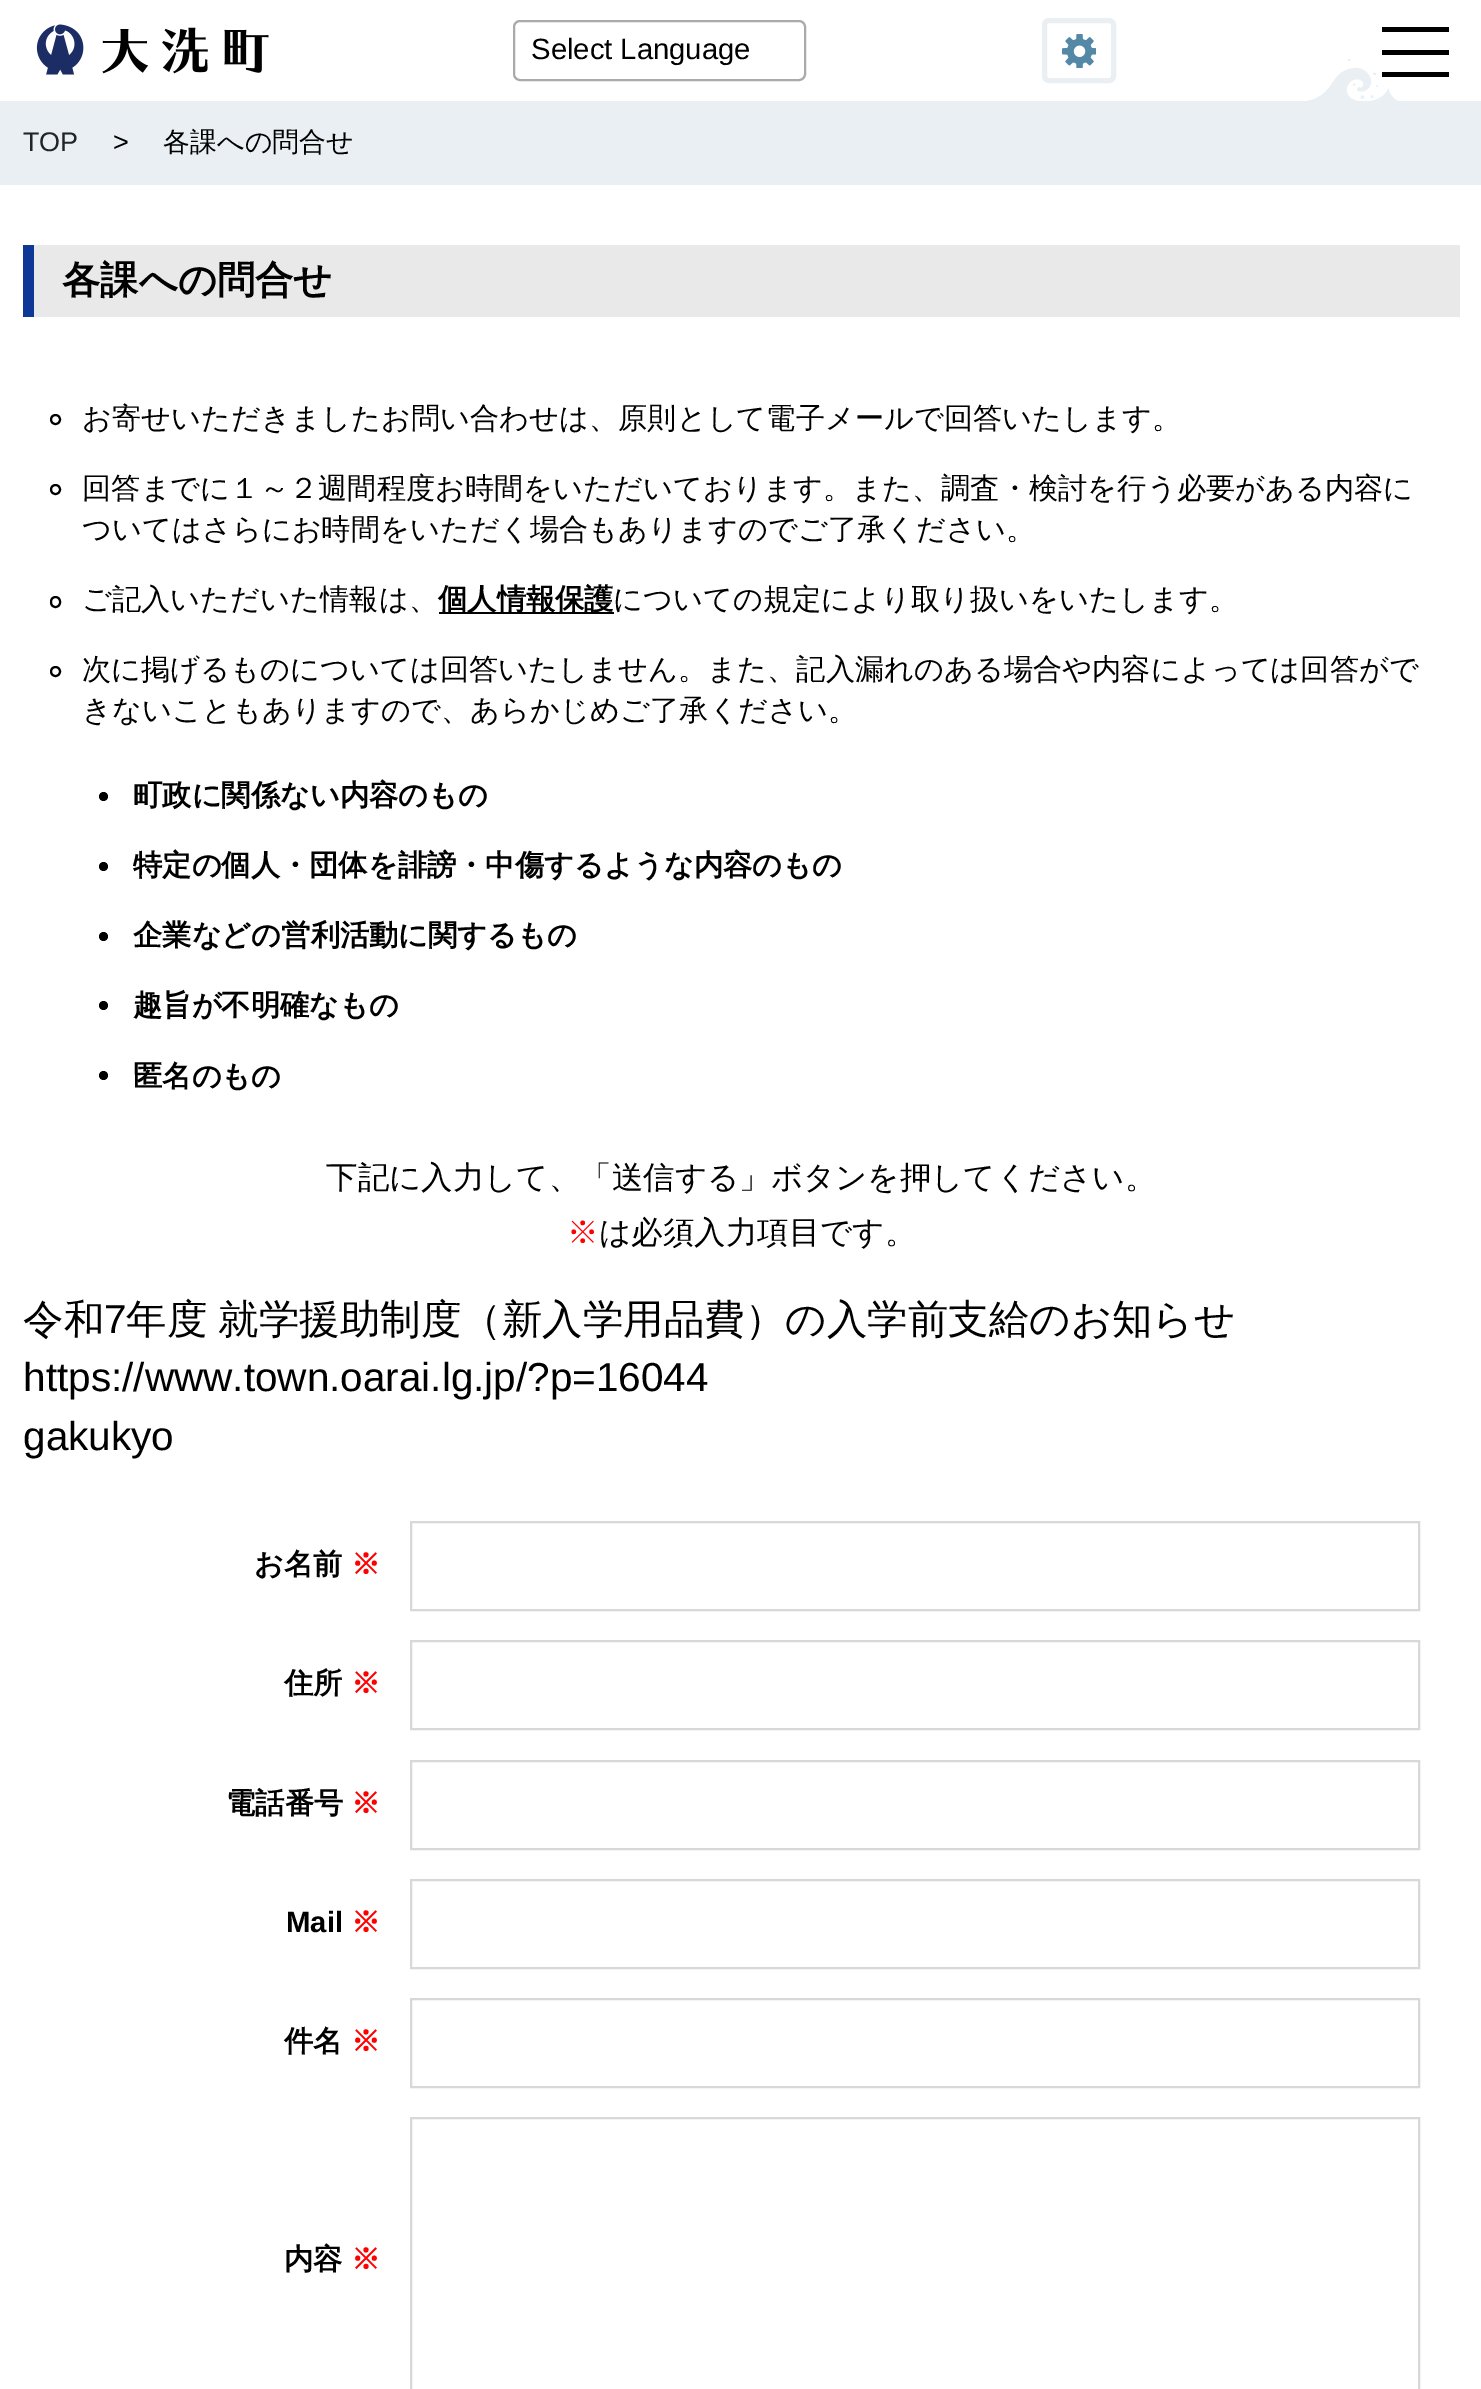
%!PS
<< /PageSize [1481 2389] >> setpagedevice
/rgb { 3 { 255 div 3 1 roll } repeat setrgbcolor } def
/font { [ exch dup neg 0 0 3 -1 roll 0 0 ] selectfont } def
/circle { newpath 0 360 arc closepath } def
/roundrect { 5 dict begin { /r /h /w /y /x } { exch def } forall
  x r add y moveto x w add y 2 copy h add r arct x w add y h add x 1 index r arct
  x y h add x y r arct x y 2 copy exch w add exch r arct closepath end } def
/picture { 5 dict begin { /h /w /y /x /name } { exch def } forall
  gsave x y translate w h scale
  w h 8 [w 0 0 h 0 0] name (r) file false 3 colorimage grestore end } def
0 2389 translate 1 -1 scale
4 setmiterlimit
255 255 255 rgb
0 0 1481 2389 rectfill
(img/1.rgb) 36 24 233 51 picture
170 170 170 rgb
2 setlinewidth
514 21 291 59 6 roundrect stroke
(img/2.rgb) 1062 34 34 34 picture
233 239 242 rgb
5 setlinewidth
1044.5 20.5 69 60 4.5 roundrect stroke
0 0 0 rgb
1382 27 67 5 rectfill
1382 50 67 5 rectfill
(img/3.rgb) 1307 59 92 42 picture
[
  [1382 72 67 5 0 0 0]
  [0 101 1481 84 233 239 242]
  [34 245 1426 72 233 233 233]
  [23 245 11 72 13 56 150]
] { aload pop rgb rectfill } forall
0 0 0 rgb
2 setlinewidth
55.5 419.5 4.5 circle stroke
55.5 489.5 4.5 circle stroke
51 597 9 10 4.5 roundrect stroke
439 612 175 2 rectfill
55.5 671.5 4.5 circle stroke
103.5 796.5 4.5 circle fill
103.5 866.5 4.5 circle fill
103.5 936.5 4.5 circle fill
103.5 1005.5 4.5 circle fill
103.5 1075.5 4.5 circle fill
216 216 216 rgb
411 1522 1008 88 rectstroke
411 1641 1008 88 rectstroke
411 1761 1008 88 rectstroke
411 1880 1008 88 rectstroke
411 1999 1008 88 rectstroke
411 2118 1008 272 rectstroke
/LiberationSans-Regular 29.25 font
0 0 0 rgb
531 59 moveto (Select Language) show
/LiberationSans-Regular 27 font
33 37 41 rgb
23 151 moveto (TOP) show
0 0 0 rgb
113 151 moveto (>) show
/WenQuanYiZenHei-Medium 27 font
163 151 moveto (各課への問合せ) show
/WenQuanYiZenHei-Bold 38.25 font
62 293 moveto (各課への問合せ) show
/WenQuanYiZenHei-Medium 29.25 font
[
  [(お寄せいただきましたお問い合わせは、原則として電子メールで回答いたします。) 82 428]
  [(回答までに１～２週間程度お時間をいただいております。また、調査・検討を行う必要がある内容に) 82 498]
  [(ついてはさらにお時間をいただく場合もありますのでご了承ください。) 82 539]
  [(ご記入いただいた情報は、) 82 609]
] { aload pop moveto show } forall
/WenQuanYiZenHei-Bold 29.25 font
438 609 moveto (個人情報保護) show
/WenQuanYiZenHei-Medium 29.25 font
[
  [(についての規定により取り扱いをいたします。) 613 609]
  [(次に掲げるものについては回答いたしません。また、記入漏れのある場合や内容によっては回答がで) 82 679]
  [(きないこともありますので、あらかじめご了承ください。) 82 720]
] { aload pop moveto show } forall
/WenQuanYiZenHei-Bold 29.25 font
[
  [(町政に関係ない内容のもの) 133 805]
  [(特定の個人・団体を誹謗・中傷するような内容のもの) 133 875]
  [(企業などの営利活動に関するもの) 133 945]
  [(趣旨が不明確なもの) 133 1015]
  [(匿名のもの) 133 1086]
] { aload pop moveto show } forall
/WenQuanYiZenHei-Medium 31.5 font
326 1188 moveto (下記に入力して、「送信する」ボタンを押してください。) show
255 0 0 rgb
567 1243 moveto (※) show
0 0 0 rgb
599 1243 moveto (は必須入力項目です。) show
/WenQuanYiZenHei-Medium 40.5 font
23 1333 moveto (令和) show
/LiberationSans-Regular 40.5 font
104 1333 moveto (7) show
/WenQuanYiZenHei-Medium 40.5 font
126 1333 moveto -1 0 32 (年度 就学援助制度（新入学用品費）の入学前支給のお知らせ) widthshow
/LiberationSans-Regular 40.5 font
23 1391 moveto (https://www.town.oarai.lg.jp/?p=16044) show
23 1450 moveto (gakukyo) show
/WenQuanYiZenHei-Bold 29.25 font
254 1574 moveto (お名前) show
255 0 0 rgb
351 1574 moveto (※) show
0 0 0 rgb
284 1693 moveto (住所) show
255 0 0 rgb
351 1693 moveto (※) show
0 0 0 rgb
226 1813 moveto (電話番号) show
255 0 0 rgb
351 1813 moveto (※) show
/LiberationSans-Bold 29.25 font
0 0 0 rgb
286 1932 moveto (Mail) show
/WenQuanYiZenHei-Bold 29.25 font
255 0 0 rgb
351 1932 moveto (※) show
0 0 0 rgb
284 2051 moveto (件名) show
255 0 0 rgb
351 2051 moveto (※) show
0 0 0 rgb
284 2269 moveto (内容) show
255 0 0 rgb
351 2269 moveto (※) show
showpage
